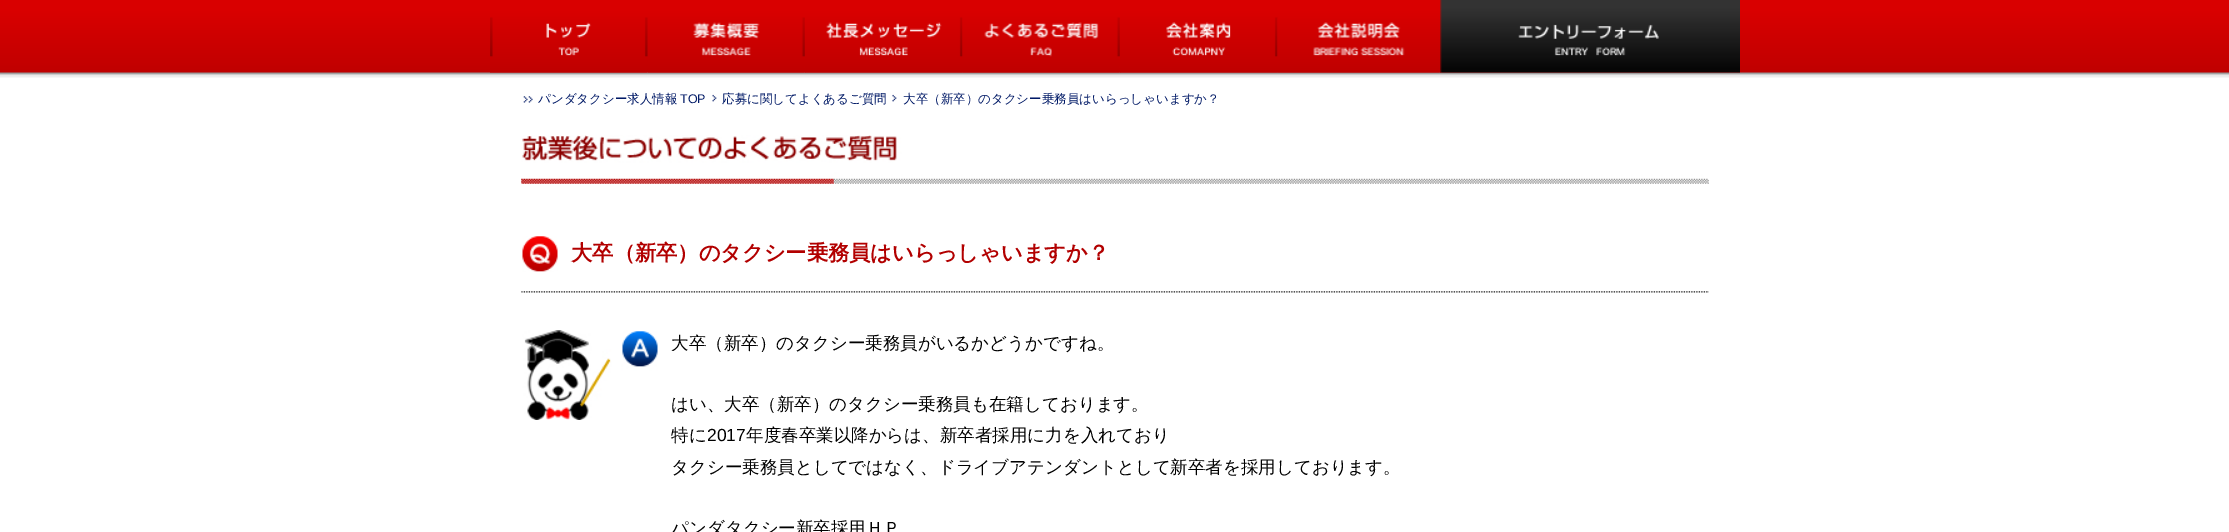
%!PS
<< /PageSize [2229 532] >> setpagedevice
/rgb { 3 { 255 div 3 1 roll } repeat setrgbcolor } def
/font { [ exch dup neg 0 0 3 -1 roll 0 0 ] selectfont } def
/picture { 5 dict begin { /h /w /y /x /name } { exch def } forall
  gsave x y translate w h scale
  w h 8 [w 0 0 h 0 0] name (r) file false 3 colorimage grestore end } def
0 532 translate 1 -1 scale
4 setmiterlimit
255 255 255 rgb
0 0 2229 532 rectfill
(img/1.rgb) 0 0 2229 78 picture
(img/2.rgb) 490 17 158 56 picture
(img/3.rgb) 648 17 158 56 picture
(img/4.rgb) 805 17 158 56 picture
(img/5.rgb) 962 17 159 56 picture
(img/6.rgb) 1120 17 158 56 picture
(img/7.rgb) 1277 18 164 55 picture
(img/8.rgb) 1440 0 300 73 picture
(img/9.rgb) 523 96 10 7 picture
(img/10.rgb) 712 94 5 8 picture
(img/11.rgb) 892 94 5 8 picture
(img/12.rgb) 521 135 1188 49 picture
(img/13.rgb) 521 291 1188 2 picture
(img/14.rgb) 522 236 36 36 picture
(img/15.rgb) 522 330 136 90 picture
/WenQuanYiZenHei-Medium 12.5 font
0 25 102 rgb
538 103 moveto (パンダタクシー求人情報) show
/LiberationSans-Regular 12.5 font
680 103 moveto (TOP) show
/WenQuanYiZenHei-Medium 12.5 font
722 103 moveto (応募に関してよくあるご質問) show
903 103 moveto (大卒（新卒）のタクシー乗務員はいらっしゃいますか？) show
/WenQuanYiZenHei-Bold 21.25 font
178 0 0 rgb
571 260 moveto (大卒（新卒）のタクシー乗務員はいらっしゃいますか？) show
/WenQuanYiZenHei-Medium 17.5 font
0 0 0 rgb
[
  [(大卒（新卒）のタクシー乗務員がいるかどうかですね。) 671 349]
  [(はい、大卒（新卒）のタクシー乗務員も在籍しております。) 671 410]
  [(特に) 671 441]
] { aload pop moveto show } forall
/LiberationSans-Regular 17.5 font
707 441 moveto (2017) show
/WenQuanYiZenHei-Medium 17.5 font
[
  [(年度春卒業以降からは、新卒者採用に力を入れており) 746 441]
  [(タクシー乗務員としてではなく、ドライブアテンダントとして新卒者を採用しております。) 671 473]
  [(パンダタクシー新卒採用ＨＰ) 671 534]
] { aload pop moveto show } forall
showpage
